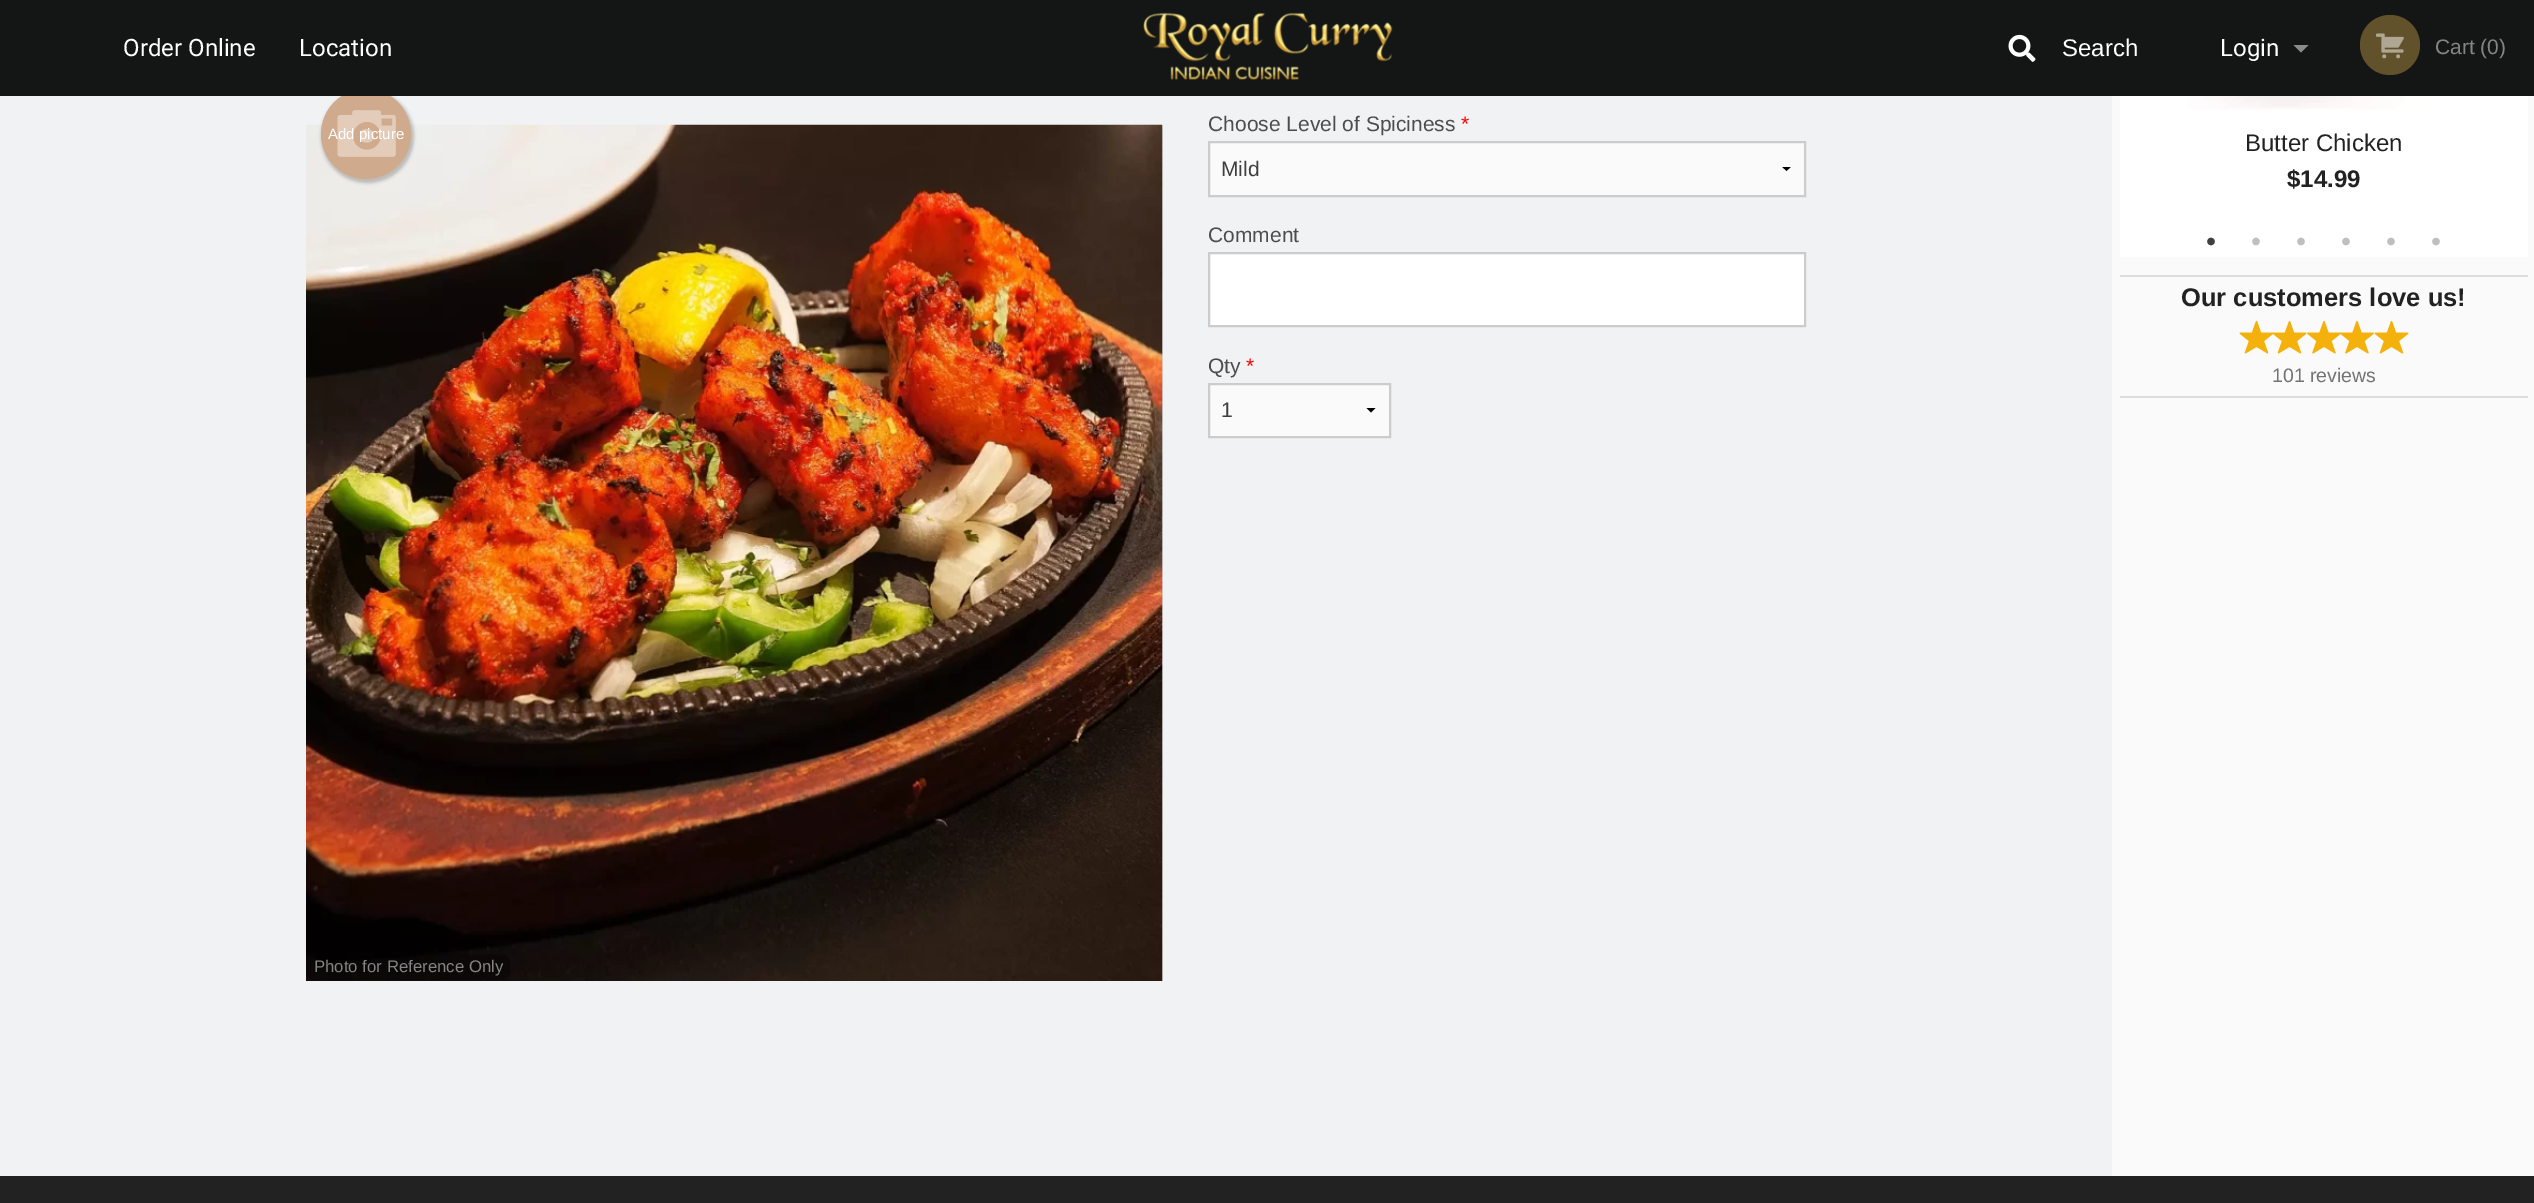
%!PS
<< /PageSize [2534 1203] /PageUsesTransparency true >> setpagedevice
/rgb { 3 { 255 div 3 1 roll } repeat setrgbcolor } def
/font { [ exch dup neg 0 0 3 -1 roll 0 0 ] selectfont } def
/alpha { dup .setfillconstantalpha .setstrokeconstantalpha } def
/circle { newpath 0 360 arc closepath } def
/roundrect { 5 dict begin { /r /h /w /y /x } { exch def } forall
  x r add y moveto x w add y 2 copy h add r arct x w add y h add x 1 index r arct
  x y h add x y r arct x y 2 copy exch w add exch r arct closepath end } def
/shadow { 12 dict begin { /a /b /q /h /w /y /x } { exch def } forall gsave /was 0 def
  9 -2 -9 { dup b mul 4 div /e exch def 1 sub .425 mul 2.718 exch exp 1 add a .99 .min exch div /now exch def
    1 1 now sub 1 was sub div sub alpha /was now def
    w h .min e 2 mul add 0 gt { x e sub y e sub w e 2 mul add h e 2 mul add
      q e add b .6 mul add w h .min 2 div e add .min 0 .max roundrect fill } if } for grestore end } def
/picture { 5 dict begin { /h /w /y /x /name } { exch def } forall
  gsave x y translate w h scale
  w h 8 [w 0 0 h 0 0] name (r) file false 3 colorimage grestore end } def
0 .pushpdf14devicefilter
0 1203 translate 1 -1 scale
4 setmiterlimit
241 242 243 rgb
0 0 2534 1203 rectfill
gsave
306 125 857 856 rectclip
0 0 0 rgb
306 126 860 860 0 1.5 0.2 shadow
grestore
(img/4.rgb) 306 124 857 857 picture
0 0 0 rgb
321 90 93 93 46.5 1.5 0.2 shadow
208 170 140 rgb
366 134 45 circle fill
20 22 22 rgb
0 0 2534 96 rectfill
(img/1.rgb) 1143 12 250 68 picture
(img/2.rgb) 2008 34 28 28 picture
138 139 139 rgb
2293.5 45 moveto 2308.5 45 lineto 2301 52.5 lineto closepath fill
98 82 43 rgb
2390 45 30 circle fill
(img/3.rgb) 2376 33 28 26 picture
(img/5.rgb) 337 110 59 47 picture
0.3 alpha
0 0 0 rgb
306 954 204 26 8 roundrect fill
1 alpha
250 250 250 rgb
1210 143 594 52 rectfill
gsave
1769 167 36 5 rectclip
0 0 0 rgb
1791 166.5 moveto 1786.5 171 lineto 1782 166.5 lineto closepath fill
grestore
204 204 204 rgb
2 setlinewidth
1209 142 596 54 rectstroke
255 255 255 rgb
1209 253 moveto 1805 253 lineto 1805 326 lineto 1209 326 lineto closepath gsave fill grestore
204 204 204 rgb
stroke
250 250 250 rgb
1210 385 179 51 rectfill
0 0 0 rgb
1375.5 408 moveto 1371 412.5 lineto 1366.5 408 lineto closepath fill
204 204 204 rgb
1209 384 181 53 rectstroke
250 250 250 rgb
2112 96 422 1080 rectfill
255 255 255 rgb
2120 96 408 161 rectfill
(img/6.rgb) 2188 96 242 14 picture
(img/7.rgb) 2207 237 8 9 picture
(img/8.rgb) 2252 237 8 9 picture
(img/8.rgb) 2297 237 8 9 picture
(img/8.rgb) 2342 237 8 9 picture
(img/8.rgb) 2387 237 8 9 picture
(img/8.rgb) 2432 237 8 9 picture
221 221 221 rgb
2120 275 408 2 rectfill
(img/9.rgb) 2239 320 35 34 picture
(img/10.rgb) 2272 320 35 34 picture
(img/11.rgb) 2307 320 34 34 picture
(img/12.rgb) 2340 320 34 34 picture
(img/9.rgb) 2374 320 35 34 picture
2120 396 408 2 rectfill
34 34 34 rgb
0 1176 2534 27 rectfill
/Roboto-Regular 24 font
255 255 255 rgb
123 56 moveto (Order Online) show
299 56 moveto (Location) show
/LiberationSans-Regular 24 font
2062 56 moveto (Search) show
/Roboto-Regular 24 font
2220 56 moveto (Login) show
/LiberationSans-Regular 21 font
133 132 131 rgb
2435 54 moveto (Cart \(0\)) show
/LiberationSans-Regular 15 font
255 255 255 rgb
328 139 moveto (Add picture) show
/LiberationSans-Regular 16.75 font
133 132 131 rgb
314 972 moveto (Photo for Reference Only) show
/LiberationSans-Regular 21 font
77 77 77 rgb
1208 131 moveto (Choose Level of Spiciness) show
255 0 0 rgb
1461 131 moveto (*) show
63 63 63 rgb
1221 176 moveto (Mild) show
77 77 77 rgb
1208 242 moveto (Comment) show
1208 373 moveto (Qty) show
255 0 0 rgb
1246 373 moveto (*) show
63 63 63 rgb
1221 417 moveto (1) show
/LiberationSans-Regular 24 font
34 34 34 rgb
2245 151 moveto (Butter Chicken) show
/LiberationSans-Bold 24 font
2287 187 moveto ($14.99) show
/LiberationSans-Bold 25.5 font
2181 306 moveto (Our customers love us!) show
/LiberationSans-Regular 19.5 font
115 115 115 rgb
2272 382 moveto (101 reviews) show
.poppdf14devicefilter showpage
